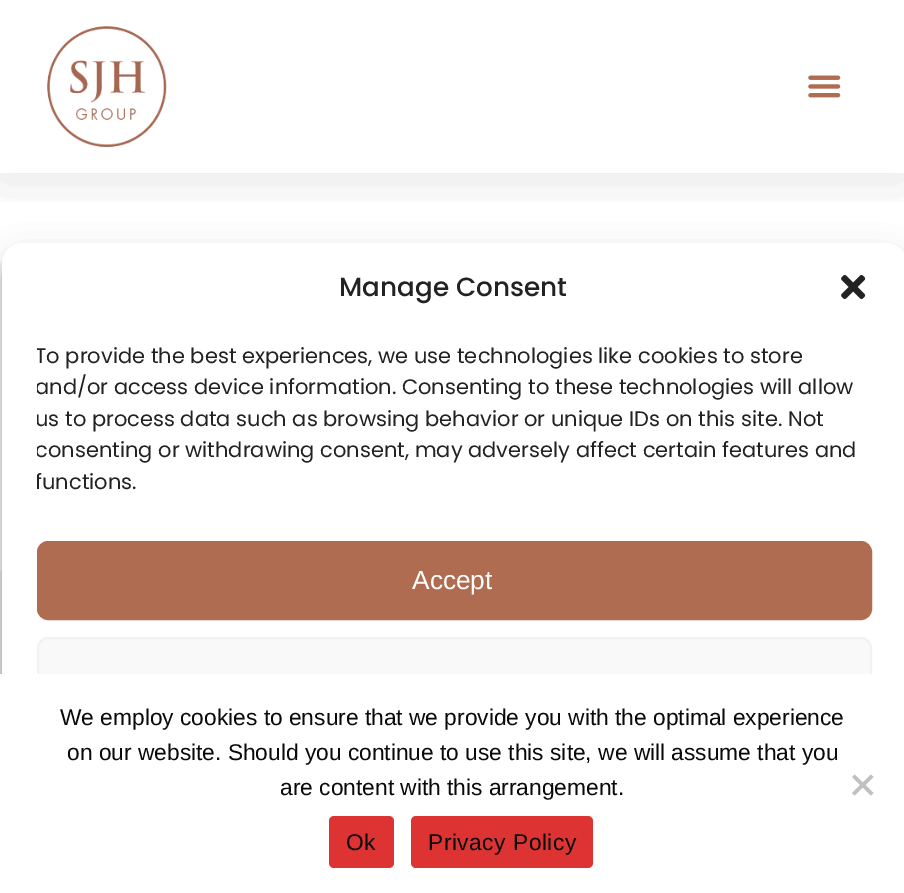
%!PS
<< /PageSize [904 893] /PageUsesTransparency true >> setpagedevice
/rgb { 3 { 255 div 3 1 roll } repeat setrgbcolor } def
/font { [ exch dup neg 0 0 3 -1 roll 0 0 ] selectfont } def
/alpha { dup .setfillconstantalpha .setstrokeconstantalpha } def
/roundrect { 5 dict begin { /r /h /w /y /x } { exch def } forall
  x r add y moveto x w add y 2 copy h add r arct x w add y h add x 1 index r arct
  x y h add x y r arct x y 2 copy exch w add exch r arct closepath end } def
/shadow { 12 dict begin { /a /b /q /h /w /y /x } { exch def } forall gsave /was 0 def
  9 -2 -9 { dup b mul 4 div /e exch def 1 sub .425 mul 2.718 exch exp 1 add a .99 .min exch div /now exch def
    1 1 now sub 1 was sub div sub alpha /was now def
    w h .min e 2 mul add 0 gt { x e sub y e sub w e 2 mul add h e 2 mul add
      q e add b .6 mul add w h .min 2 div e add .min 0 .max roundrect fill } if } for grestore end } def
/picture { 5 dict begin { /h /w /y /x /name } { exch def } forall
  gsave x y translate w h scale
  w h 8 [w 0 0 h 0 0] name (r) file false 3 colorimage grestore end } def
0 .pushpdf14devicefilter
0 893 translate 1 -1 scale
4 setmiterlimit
255 255 255 rgb
0 0 904 893 rectfill
gsave
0 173 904 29 rectclip
0 0 0 rgb
0 7 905 173 0 26 0.1 shadow
grestore
(img/1.rgb) 47 26 120 121 picture
(img/2.rgb) 808 75 33 23 picture
241 241 241 rgb
0 571 2 103 rectfill
0 0 0 rgb
2 254 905 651 21 5 0.23 shadow
2 261 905 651 21 17.5 0.19 shadow
255 255 255 rgb
2 243 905 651 21 roundrect fill
(img/3.rgb) 841 275 25 24 picture
175 108 81 rgb
38 542 833 77 10 roundrect gsave fill grestore
2 setlinewidth
stroke
249 249 249 rgb
38 638 833 77 10 roundrect gsave fill grestore
242 242 242 rgb
stroke
255 255 255 rgb
0 674 904 219 rectfill
192 192 192 rgb
871 774.5 moveto 873.5 777 lineto 854.5 795.5 lineto 852 793 lineto closepath fill
852 777 moveto 854.5 774.5 lineto 873.5 793 lineto 871 795.5 lineto closepath fill
221 51 51 rgb
329 816 65 52 5 roundrect fill
411 816 182 52 5 roundrect fill
/Poppins-Medium 26.25 font
34 34 34 rgb
339 296 moveto (Manage Consent) show
gsave
37 340 835 166 rectclip
/Poppins-Regular 21 font
[
  [(To provide the best experiences, we use technologies like cookies to store) 35 363]
  [(and/or access device information. Consenting to these technologies will allow) 35 394]
  [(us to process data such as browsing behavior or unique IDs on this site. Not) 35 426]
  [(consenting or withdrawing consent, may adversely affect certain features and) 35 457]
  [(functions.) 35 489]
] { aload pop moveto show } forall
grestore
/LiberationSans-Regular 26.25 font
255 255 255 rgb
412 589 moveto (Accept) show
/LiberationSans-Regular 22.75 font
10 10 10 rgb
[
  [(We employ cookies to ensure that we provide you with the optimal experience) 60 725]
  [(on our website. Should you continue to use this site, we will assume that you) 67 760]
  [(are content with this arrangement.) 280 795]
] { aload pop moveto show } forall
346 850 moveto 0.5 0 (Ok) ashow
428 850 moveto 0.5 0 (Privacy Policy) ashow
.poppdf14devicefilter showpage
